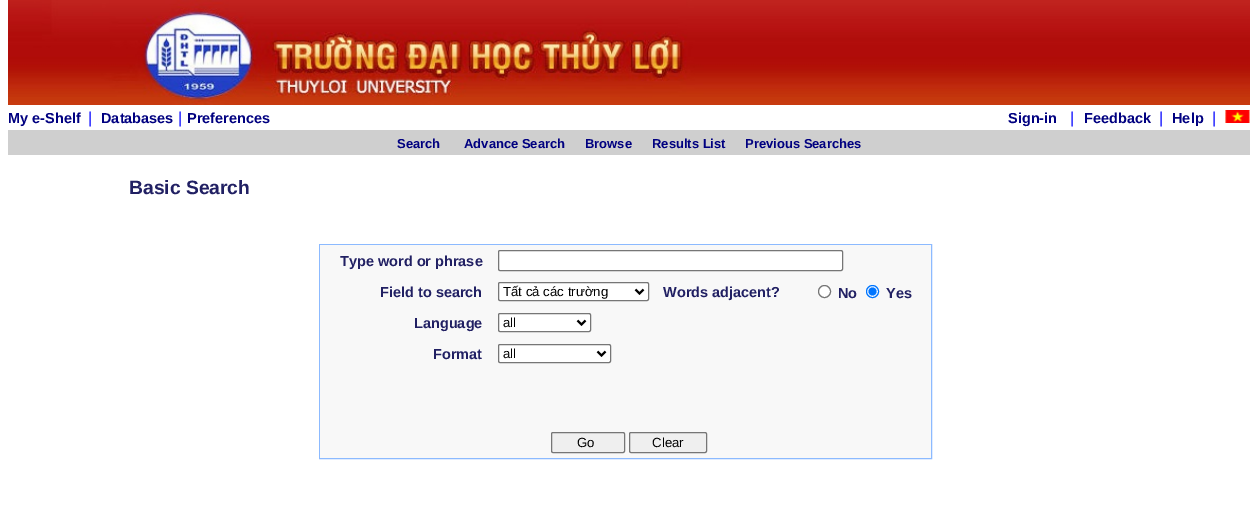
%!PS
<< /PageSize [1258 519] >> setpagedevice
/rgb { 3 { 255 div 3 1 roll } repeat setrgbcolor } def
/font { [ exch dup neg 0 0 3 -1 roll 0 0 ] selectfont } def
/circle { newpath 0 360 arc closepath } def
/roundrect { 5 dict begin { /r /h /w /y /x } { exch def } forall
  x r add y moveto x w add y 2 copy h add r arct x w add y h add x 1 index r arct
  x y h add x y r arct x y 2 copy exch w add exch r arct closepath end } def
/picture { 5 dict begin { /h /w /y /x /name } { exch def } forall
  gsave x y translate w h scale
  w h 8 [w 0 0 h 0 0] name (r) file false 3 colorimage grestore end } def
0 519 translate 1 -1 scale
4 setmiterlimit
255 255 255 rgb
0 0 1258 519 rectfill
(img/1.rgb) 8 0 1242 105 picture
(img/2.rgb) 1225 110 25 13 picture
207 207 207 rgb
8 130 1242 25 rectfill
140 186 255 rgb
319.5 244.5 612 214 rectstroke
248 248 248 rgb
320 245 611 31 rectfill
255 255 255 rgb
498.5 250.5 344 20 1.5 roundrect gsave fill grestore
118 118 118 rgb
stroke
248 248 248 rgb
320 276 611 31 rectfill
255 255 255 rgb
498.5 282.5 150 18 1.5 roundrect gsave fill grestore
118 118 118 rgb
stroke
0 0 0 rgb
2 setlinewidth
635.5 289.5 moveto 639.5 293.5 lineto 643.5 289.5 lineto stroke
255 255 255 rgb
824.5 291.5 6 circle gsave fill grestore
118 118 118 rgb
1 setlinewidth
stroke
255 255 255 rgb
872.5 291.5 6 circle gsave fill grestore
0 117 255 rgb
stroke
872.5 291.5 4 circle fill
248 248 248 rgb
320 307 611 31 rectfill
255 255 255 rgb
498.5 313.5 92 18 1.5 roundrect gsave fill grestore
118 118 118 rgb
stroke
0 0 0 rgb
2 setlinewidth
577.5 320.5 moveto 581.5 324.5 lineto 585.5 320.5 lineto stroke
248 248 248 rgb
320 338 611 89 rectfill
255 255 255 rgb
498.5 344.5 112 18 1.5 roundrect gsave fill grestore
118 118 118 rgb
1 setlinewidth
stroke
0 0 0 rgb
2 setlinewidth
597.5 351.5 moveto 601.5 355.5 lineto 605.5 351.5 lineto stroke
248 248 248 rgb
320 427 611 31 rectfill
239 239 239 rgb
551.5 432.5 73 20 1.5 roundrect gsave fill grestore
118 118 118 rgb
1 setlinewidth
stroke
239 239 239 rgb
629.5 432.5 77 20 1.5 roundrect gsave fill grestore
118 118 118 rgb
stroke
/LiberationSans-Bold 14.5 font
0 0 128 rgb
8 123 moveto (My e-Shelf) show
/LiberationSans-Regular 16 font
0 0 255 rgb
88 123 moveto (|) show
/LiberationSans-Bold 14.5 font
0 0 128 rgb
101 123 moveto (Databases) show
/LiberationSans-Regular 16 font
0 0 255 rgb
178 123 moveto (|) show
/LiberationSans-Bold 14.5 font
0 0 128 rgb
187 123 moveto (Preferences) show
1008 123 moveto (Sign-in) show
/LiberationSans-Regular 16 font
0 0 255 rgb
1070 123 moveto (|) show
/LiberationSans-Bold 14.5 font
0 0 128 rgb
1084 123 moveto (Feedback) show
/LiberationSans-Regular 16 font
0 0 255 rgb
1159 123 moveto (|) show
/LiberationSans-Bold 14.5 font
0 0 128 rgb
1172 123 moveto (Help) show
/LiberationSans-Regular 16 font
0 0 255 rgb
1212 123 moveto (|) show
/LiberationSans-Bold 13 font
0 0 128 rgb
[
  [(Search) 397 148]
  [(Advance Search) 464 148]
  [(Browse) 585 148]
  [(Results List) 652 148]
  [(Previous Searches) 745 148]
] { aload pop moveto show } forall
/LiberationSans-Bold 19.25 font
33 32 99 rgb
129 194 moveto (Basic Search) show
/LiberationSans-Bold 14.5 font
340 266 moveto (Type word or phrase) show
380 297 moveto (Field to search) show
/LiberationSans-Regular 13.25 font
0 0 0 rgb
503 296 moveto (Tất cả các trường) show
/LiberationSans-Bold 14.5 font
33 32 99 rgb
[
  [(Words adjacent?) 663 297]
  [(No) 838 298]
  [(Yes) 886 298]
  [(Language) 414 328]
] { aload pop moveto show } forall
/LiberationSans-Regular 13.25 font
0 0 0 rgb
503 327 moveto (all) show
/LiberationSans-Bold 14.5 font
33 32 99 rgb
433 359 moveto (Format) show
/LiberationSans-Regular 13.25 font
0 0 0 rgb
[
  [(all) 503 358]
  [(Go) 577 447]
  [(Clear) 652 447]
] { aload pop moveto show } forall
showpage
